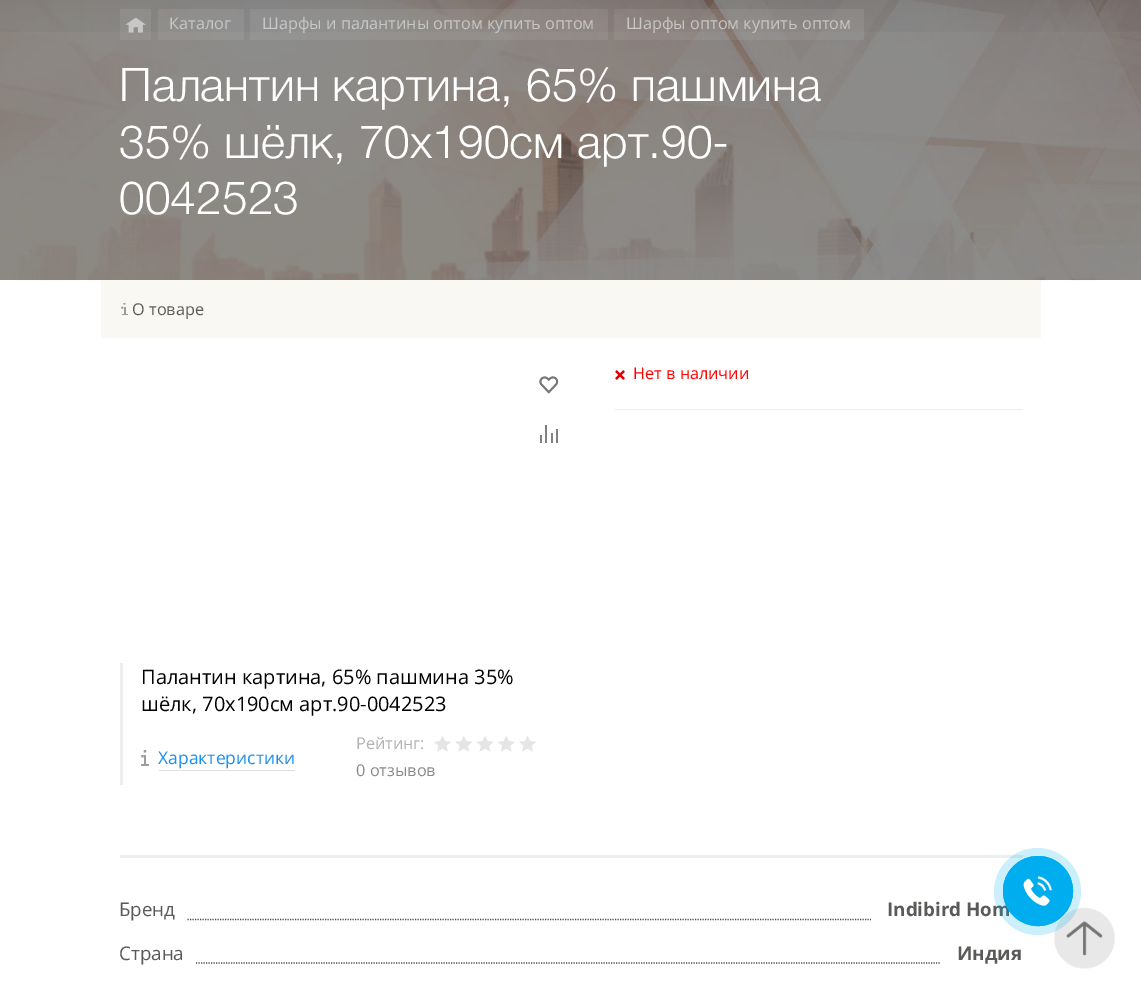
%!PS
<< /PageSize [1141 994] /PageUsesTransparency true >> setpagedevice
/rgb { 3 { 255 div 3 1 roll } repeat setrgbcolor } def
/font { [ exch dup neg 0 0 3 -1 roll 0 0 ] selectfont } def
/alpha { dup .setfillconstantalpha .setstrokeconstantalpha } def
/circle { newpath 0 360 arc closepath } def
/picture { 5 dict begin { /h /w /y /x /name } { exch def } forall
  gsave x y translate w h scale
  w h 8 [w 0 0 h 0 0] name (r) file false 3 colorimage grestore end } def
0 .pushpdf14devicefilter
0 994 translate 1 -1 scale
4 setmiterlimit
255 255 255 rgb
0 0 1141 994 rectfill
(img/1.rgb) 0 0 1141 281 picture
(img/2.rgb) 0 0 1141 32 picture
0.07 alpha
120 9 31 31 rectfill
1 alpha
(img/3.rgb) 125 18 21 15 picture
0.07 alpha
[
  [158 9 86 31 255 255 255]
  [250 9 358 31 255 255 255]
  [614 9 250 31 255 255 255]
] { aload pop rgb rectfill } forall
1 alpha
[
  [101 280 940 58 250 248 242]
] { aload pop rgb rectfill } forall
(img/4.rgb) 121 303 7 12 picture
(img/5.rgb) 615 370 10 10 picture
238 238 238 rgb
615 409 408 1 rectfill
(img/6.rgb) 539 376 20 18 picture
[
  [540 435 2 8 128 128 128]
  [545 425 2 18 128 128 128]
  [556 429 2 14 128 128 128]
  [551 433 2 10 128 128 128]
  [120 663 3 122 238 238 238]
] { aload pop rgb rectfill } forall
(img/7.rgb) 141 750 8 16 picture
222 222 222 rgb
159 770 136 1 rectfill
(img/8.rgb) 434 736 17 16 picture
(img/9.rgb) 455 736 17 16 picture
(img/10.rgb) 476 736 18 16 picture
(img/11.rgb) 498 736 17 16 picture
(img/8.rgb) 519 736 17 16 picture
238 238 238 rgb
120 855 903 3 rectfill
73 73 73 rgb
1.2 setlinewidth
[1.25 1.25] 0 setdash
187.5 919.5 moveto 871 919.5 lineto stroke
196 963 moveto 941 963 lineto stroke
(img/13.rgb) 1054 907 61 62 picture
/OpenSans-Regular 16.25 font
199 199 198 rgb
[
  [(Каталог) 169 29]
  [(Шарфы и палантины оптом купить оптом) 262 29]
  [(Шарфы оптом купить оптом) 626 29]
] { aload pop moveto show } forall
/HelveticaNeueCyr-Light 46.25 font
255 255 255 rgb
[
  [(Палантин картина, 65% пашмина) 119 101]
  [(35% шёлк, 70x190см арт.90-) 119 158]
  [(0042523) 119 214]
] { aload pop moveto show } forall
/OpenSans-Regular 16.25 font
90 90 88 rgb
132 315 moveto (О товаре) show
255 0 0 rgb
633 379 moveto (Нет в наличии) show
/OpenSans-Regular 20 font
0 0 0 rgb
141 684 moveto (Палантин картина, 65% пашмина 35%) show
141 711 moveto (шёлк, 70x190см арт.90-0042523) show
/OpenSans-Regular 17.5 font
26 143 233 rgb
158 764 moveto (Характеристики) show
/OpenSans-Regular 16.25 font
177 177 177 rgb
356 749 moveto (Рейтинг:) show
136 136 136 rgb
356 776 moveto (0 отзывов) show
/OpenSans-Regular 18.75 font
90 90 88 rgb
119 916 moveto (Бренд) show
/OpenSans-Bold 18.75 font
887 916 moveto (Indibird Hom) show
/OpenSans-Regular 18.75 font
119 960 moveto (Страна) show
/OpenSans-Bold 18.75 font
957 960 moveto (Индия) show
0.2 alpha
0 174 239 rgb
1037.5 891.5 43.5 circle fill
1 alpha
1 setlinewidth
[] 0 setdash
1038 891 34.5 circle stroke
1038 891 35 circle fill
(img/12.rgb) 1023 876 29 30 picture
.poppdf14devicefilter showpage
